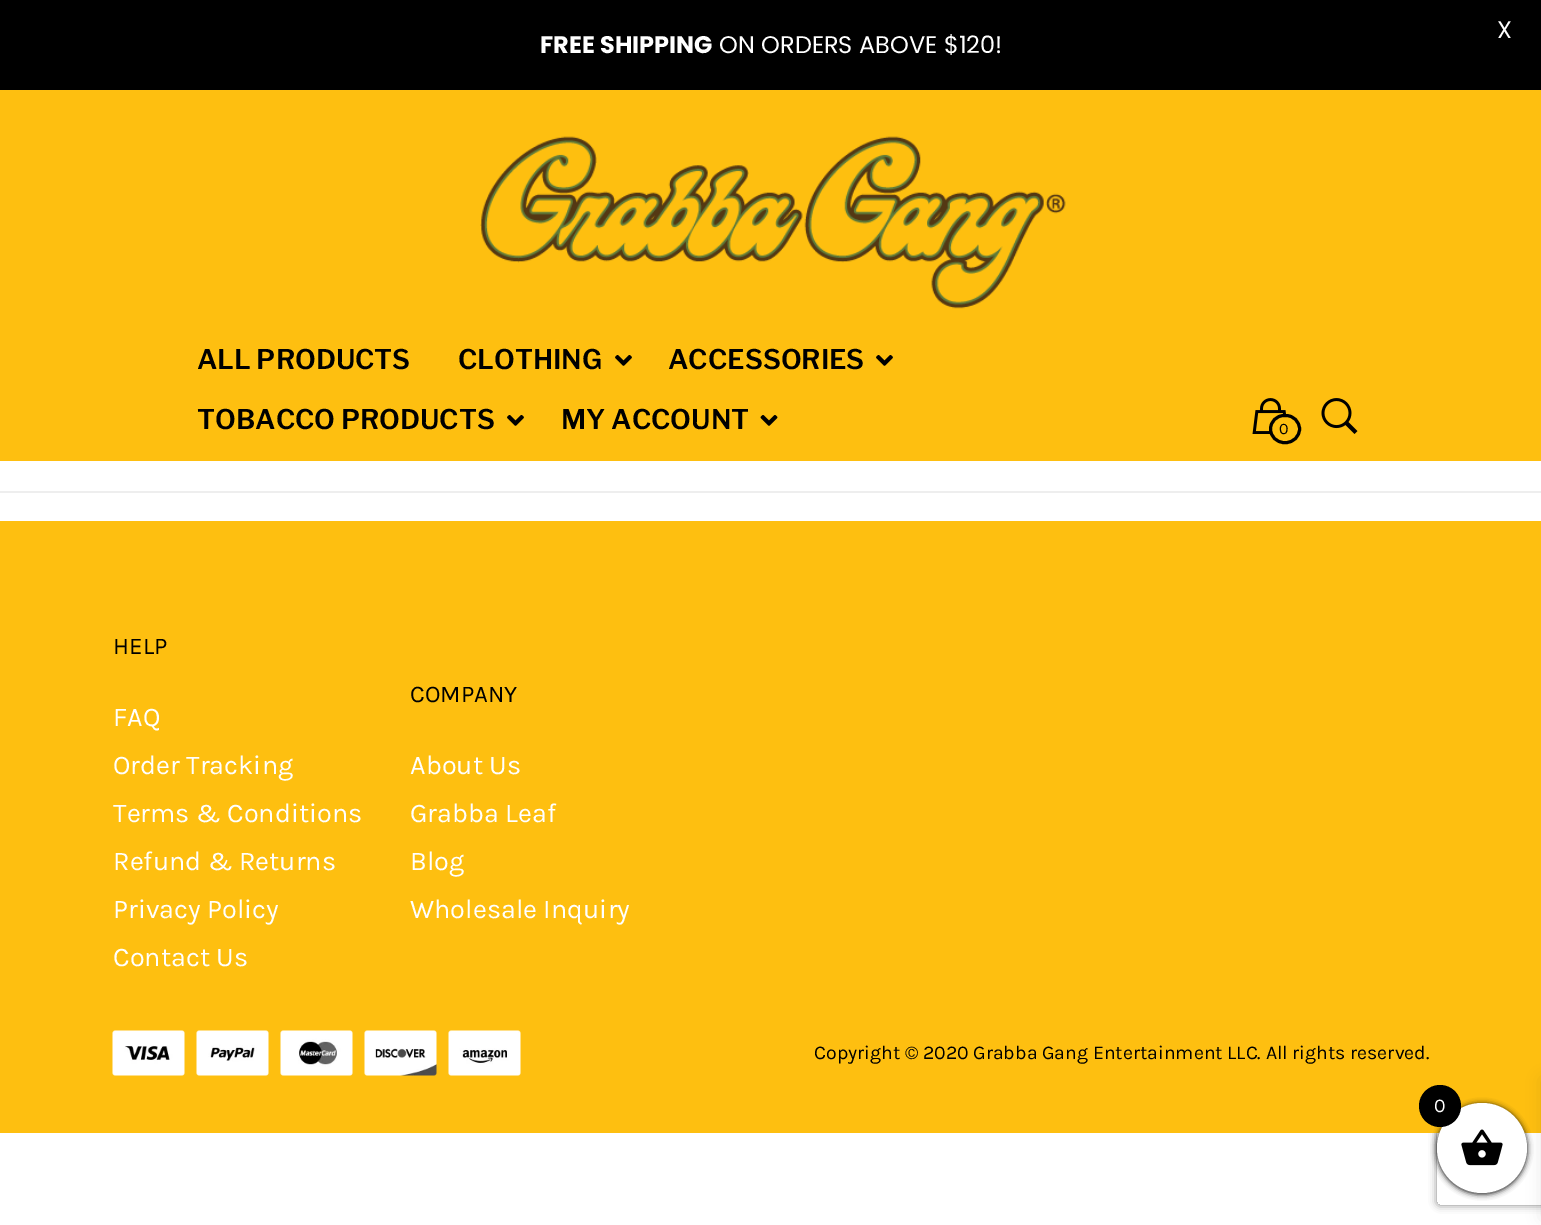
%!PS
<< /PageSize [1541 1225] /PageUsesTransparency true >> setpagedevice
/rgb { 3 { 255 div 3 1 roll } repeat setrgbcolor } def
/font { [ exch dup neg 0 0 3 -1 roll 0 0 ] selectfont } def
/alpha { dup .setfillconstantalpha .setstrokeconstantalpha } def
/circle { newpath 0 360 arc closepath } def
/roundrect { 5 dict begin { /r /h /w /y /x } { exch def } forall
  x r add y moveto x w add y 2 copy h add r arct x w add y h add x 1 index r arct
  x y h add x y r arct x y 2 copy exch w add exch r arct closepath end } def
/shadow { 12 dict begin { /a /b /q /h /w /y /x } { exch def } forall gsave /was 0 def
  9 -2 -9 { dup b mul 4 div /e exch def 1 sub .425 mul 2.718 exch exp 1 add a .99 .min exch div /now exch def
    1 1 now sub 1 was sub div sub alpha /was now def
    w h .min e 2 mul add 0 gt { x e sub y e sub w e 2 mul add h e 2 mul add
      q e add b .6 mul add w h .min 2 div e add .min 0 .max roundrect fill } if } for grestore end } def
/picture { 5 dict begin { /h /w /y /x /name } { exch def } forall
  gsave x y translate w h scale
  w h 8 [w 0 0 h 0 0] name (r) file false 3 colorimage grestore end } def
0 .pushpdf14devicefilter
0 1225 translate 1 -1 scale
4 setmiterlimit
255 255 255 rgb
0 0 1541 1225 rectfill
0 0 0 rgb
0 0 1541 90 rectfill
254 191 16 rgb
0 90 1541 371 rectfill
(img/1.rgb) 480 136 586 173 picture
(img/2.rgb) 615 355 17 11 picture
(img/2.rgb) 876 355 17 11 picture
(img/2.rgb) 507 415 17 11 picture
(img/3.rgb) 760 415 18 11 picture
(img/4.rgb) 1252 398 35 36 picture
1270.5 415.5 29 27 13.5 roundrect gsave fill grestore
0 0 0 rgb
3 setlinewidth
stroke
(img/5.rgb) 1321 398 37 36 picture
238 238 238 rgb
0 491 1541 2 rectfill
gsave
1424 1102 moveto 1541 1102 lineto 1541 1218 lineto 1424 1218 lineto closepath 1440 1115 moveto 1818 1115 lineto 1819.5 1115 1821 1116.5 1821 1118 curveto 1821 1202 lineto 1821 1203.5 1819.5 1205 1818 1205 curveto 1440 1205 lineto 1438.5 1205 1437 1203.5 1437 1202 curveto 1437 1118 lineto 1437 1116.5 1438.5 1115 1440 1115 curveto closepath eoclip newpath
128 128 128 rgb
1437 1115 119 90 3 4 1 shadow
grestore
254 191 16 rgb
0 521 1541 612 rectfill
(img/6.rgb) 112 1030 409 46 picture
0 0 0 rgb
1437 1104 90 90 45 3 1 shadow
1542 1079 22 139 0 7.5 0.1 shadow
255 255 255 rgb
1482 1148 45 circle fill
0 0 0 rgb
1440 1106 21 circle fill
(img/7.rgb) 1461 1129 42 37 picture
/Poppins-Regular 24 font
255 255 255 rgb
1497 38 moveto (X) show
/Poppins-Bold 24 font
540 53 moveto (FREE SHIPPING) show
/Poppins-Regular 24 font
719 53 moveto (ON ORDERS ABOVE $120!) show
/LibreFranklin-SemiBold 27 font
0 0 0 rgb
[
  [(ALL PRODUCTS) 197 369]
  [(CLOTHING) 458 369]
  [(ACCESSORIES) 668 369]
  [(TOBACCO PRODUCTS) 197 429]
  [(MY ACCOUNT) 561 429]
] { aload pop moveto show } forall
/Karla-Regular 16 font
1279 434 moveto (0) show
/Karla-Regular 24 font
113 654 moveto (HELP) show
/Karla-Regular 27 font
255 255 255 rgb
[
  [(FAQ) 113 726]
  [(Order Tracking) 113 774]
  [(Terms & Conditions) 113 822]
  [(Refund & Returns) 113 870]
  [(Privacy Policy) 113 918]
  [(Contact Us) 113 966]
] { aload pop moveto show } forall
/Karla-Regular 24 font
0 0 0 rgb
410 702 moveto (COMPANY) show
/Karla-Regular 27 font
255 255 255 rgb
[
  [(About Us) 410 774]
  [(Grabba Leaf) 410 822]
  [(Blog) 410 870]
  [(Wholesale Inquiry) 410 918]
] { aload pop moveto show } forall
/Karla-Regular 19.5 font
0 0 0 rgb
814 1059 moveto (Copyright © 2020 Grabba Gang Entertainment LLC. All rights reserved.) show
255 255 255 rgb
1434 1112 moveto (0) show
.poppdf14devicefilter showpage
